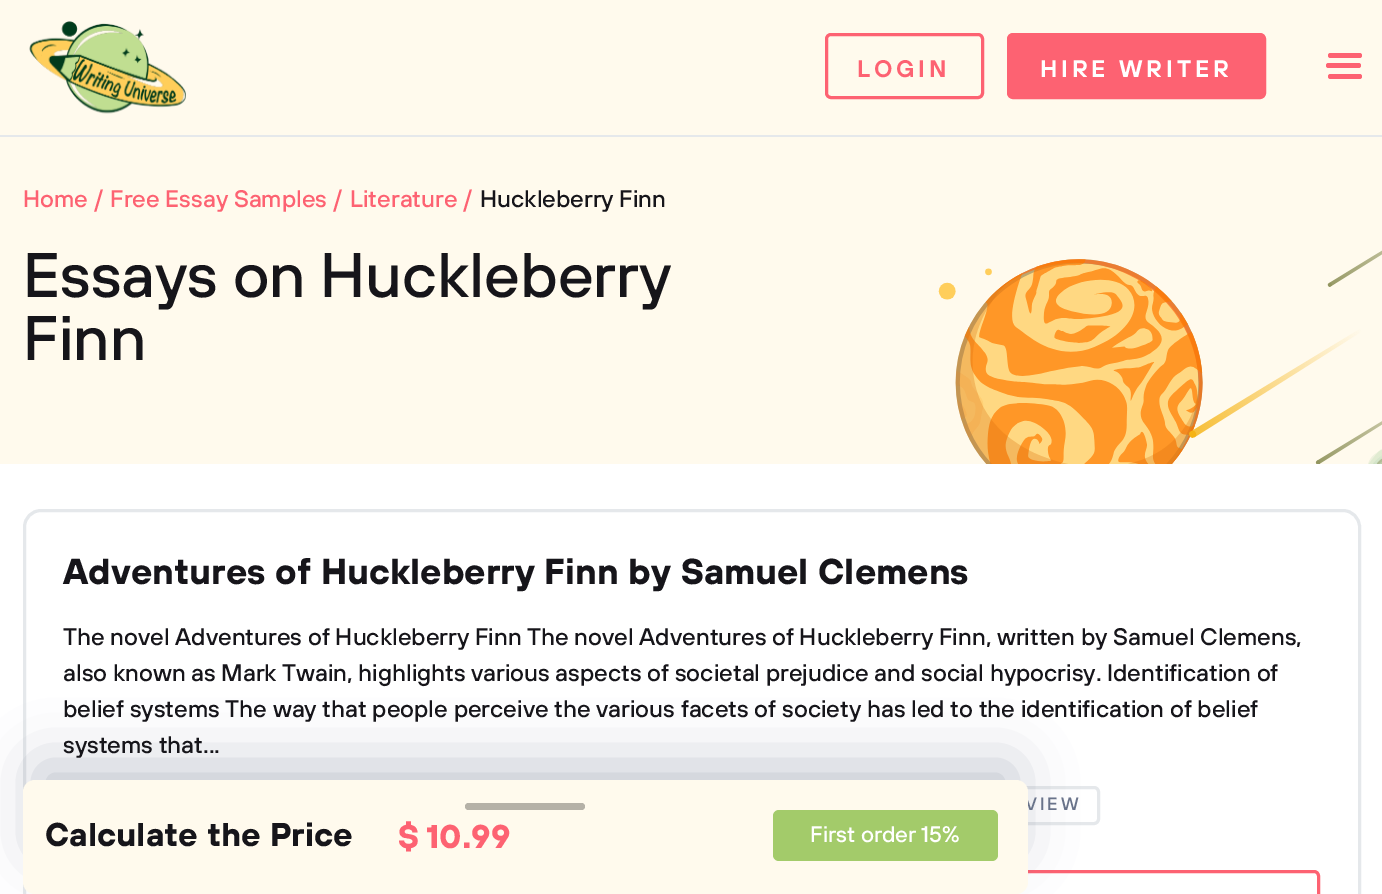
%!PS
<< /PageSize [1382 894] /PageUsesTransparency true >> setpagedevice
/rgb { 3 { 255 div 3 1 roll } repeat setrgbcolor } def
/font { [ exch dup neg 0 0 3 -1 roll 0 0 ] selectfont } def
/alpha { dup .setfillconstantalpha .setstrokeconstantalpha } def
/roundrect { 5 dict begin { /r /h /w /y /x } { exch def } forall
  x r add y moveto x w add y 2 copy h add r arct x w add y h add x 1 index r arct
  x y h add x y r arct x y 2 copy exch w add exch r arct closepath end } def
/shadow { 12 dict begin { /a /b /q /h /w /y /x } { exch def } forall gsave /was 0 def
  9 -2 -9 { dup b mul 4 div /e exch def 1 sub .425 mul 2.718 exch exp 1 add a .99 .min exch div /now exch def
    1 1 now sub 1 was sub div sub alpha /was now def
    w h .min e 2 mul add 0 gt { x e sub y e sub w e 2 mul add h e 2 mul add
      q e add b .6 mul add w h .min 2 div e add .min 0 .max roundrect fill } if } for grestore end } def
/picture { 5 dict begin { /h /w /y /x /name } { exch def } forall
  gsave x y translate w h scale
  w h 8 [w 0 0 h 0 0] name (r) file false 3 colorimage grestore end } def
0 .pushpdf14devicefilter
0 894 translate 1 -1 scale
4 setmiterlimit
255 255 255 rgb
0 0 1382 894 rectfill
255 250 237 rgb
0 0 1382 135 rectfill
229 232 235 rgb
0 135 1382 2 rectfill
(img/1.rgb) 29 21 157 93 picture
253 98 114 rgb
3 setlinewidth
826.5 34.5 156 63 4.5 roundrect stroke
1008.5 34.5 256 63 4.5 roundrect gsave fill grestore
stroke
1326 63 35 5 2.5 roundrect fill
1328 53 34 5 2.5 roundrect fill
1328 74 34 5 2.5 roundrect fill
255 250 237 rgb
0 137 1382 327 rectfill
(img/2.rgb) 938 250 444 214 picture
229 232 235 rgb
24.5 510.5 1335 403 16.5 roundrect stroke
840.5 787.5 258 36 4.5 roundrect stroke
253 98 114 rgb
957.5 871.5 361 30 4.5 roundrect stroke
105 115 138 rgb
38 765 975 84 0 30 0.4 shadow
/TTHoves-SemiBold 24 font
253 98 114 rgb
857 77 moveto 3.75 0 (LOGIN) ashow
255 255 255 rgb
1040 77 moveto 3.75 0 (HIRE WRITER) ashow
/TTHoves-Medium 24 font
253 98 114 rgb
[
  [(Home) 23 207]
  [(/) 94 207]
  [(Free Essay Samples) 110 207]
  [(/) 333 207]
  [(Literature) 350 207]
  [(/) 463 207]
] { aload pop moveto show } forall
22 21 26 rgb
480 207 moveto (Huckleberry Finn) show
/TTHoves-Medium 63 font
23 297 moveto (Essays on Huckleberry) show
23 360 moveto (Finn) show
/TTHoves-Bold 36 font
63 584 moveto (Adventures of Huckleberry Finn by Samuel Clemens) show
/TTHoves-Medium 24 font
[
  [(The novel Adventures of Huckleberry Finn The novel Adventures of Huckleberry Finn, written by Samuel Clemens,) 63 645]
  [(also known as Mark Twain, highlights various aspects of societal prejudice and social hypocrisy. Identification of) 63 681]
  [(belief systems The way that people perceive the various facets of society has led to the identification of belief) 63 717]
  [(systems that...) 63 753]
] { aload pop moveto show } forall
/TTHoves-Medium 18 font
105 115 138 rgb
1025 810 moveto 3 0 (VIEW) ashow
255 250 237 rgb
23 780 1005 114 12 roundrect fill
181 177 167 rgb
465 803 120 7 3.5 roundrect fill
/TTHoves-Bold 33 font
22 21 26 rgb
45 846 moveto (Calculate the Price) show
253 98 114 rgb
398 848 moveto ($) show
426 848 moveto (10.99) show
163 203 106 rgb
773 810 225 51 6 roundrect fill
/TTHoves-Medium 22.5 font
255 255 255 rgb
810 842 moveto (First order 15%) show
.poppdf14devicefilter showpage
